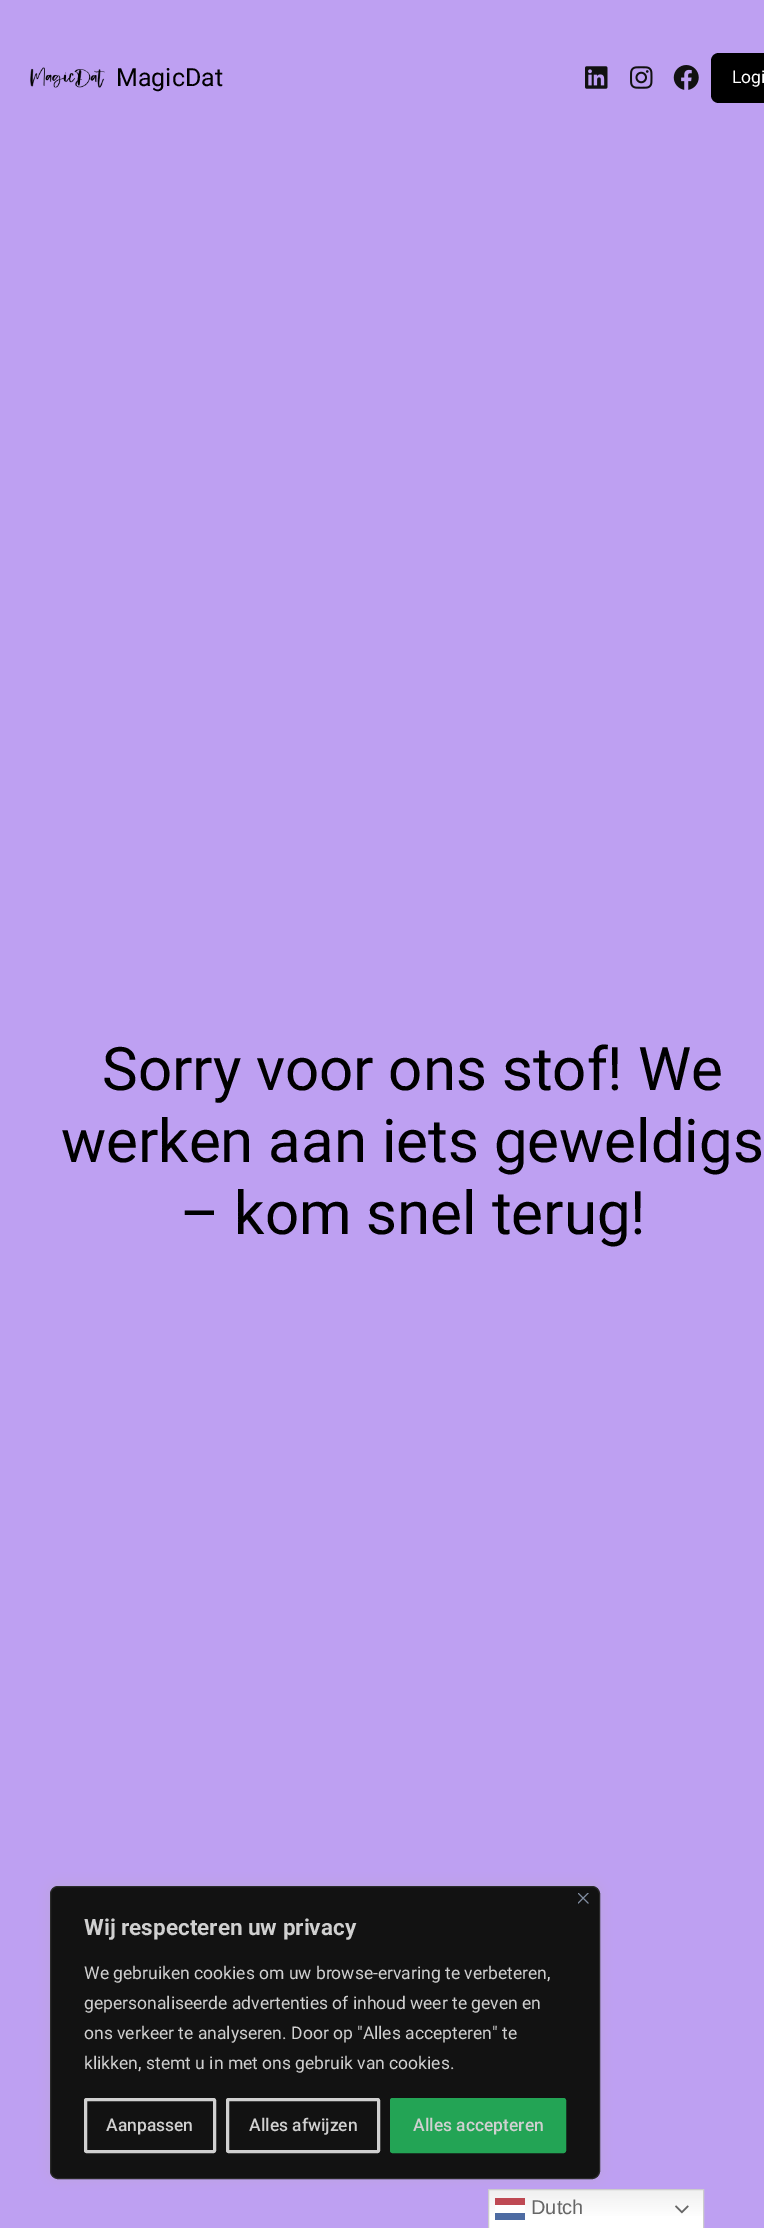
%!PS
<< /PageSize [764 2228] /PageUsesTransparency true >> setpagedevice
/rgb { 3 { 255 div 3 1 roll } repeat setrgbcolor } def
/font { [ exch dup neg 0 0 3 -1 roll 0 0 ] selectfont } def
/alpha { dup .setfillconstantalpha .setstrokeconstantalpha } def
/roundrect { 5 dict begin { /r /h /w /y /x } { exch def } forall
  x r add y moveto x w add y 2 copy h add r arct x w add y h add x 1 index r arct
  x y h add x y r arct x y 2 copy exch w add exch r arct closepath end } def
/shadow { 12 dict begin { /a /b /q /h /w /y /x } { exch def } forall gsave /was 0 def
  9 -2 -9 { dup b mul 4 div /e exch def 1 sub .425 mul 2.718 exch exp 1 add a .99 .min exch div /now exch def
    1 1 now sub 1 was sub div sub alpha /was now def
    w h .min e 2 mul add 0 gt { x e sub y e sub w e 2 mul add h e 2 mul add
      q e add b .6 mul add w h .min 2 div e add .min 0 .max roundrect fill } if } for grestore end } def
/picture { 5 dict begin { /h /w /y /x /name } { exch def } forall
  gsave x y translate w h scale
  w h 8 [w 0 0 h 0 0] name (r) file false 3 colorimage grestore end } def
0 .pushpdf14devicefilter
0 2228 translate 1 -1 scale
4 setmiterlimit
190 160 242 rgb
0 0 764 2228 rectfill
(img/1.rgb) 30 67 75 21 picture
(img/2.rgb) 585 66 23 23 picture
(img/3.rgb) 630 66 23 23 picture
(img/4.rgb) 673 65 26 25 picture
0 0 0 rgb
719 53 moveto 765 53 lineto 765 103 lineto 719 103 lineto 714.5 103 711 99.5 711 95 curveto 711 61 lineto 711 56.5 714.5 53 719 53 curveto closepath fill
gsave 489 2190 moveto 703 2190 lineto 703 2228 lineto 489 2228 lineto closepath clip newpath
<< /ShadingType 2 /ColorSpace /DeviceRGB /Coords [596 2189 596 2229] /Extend [true true] /Function << /FunctionType 3 /Domain [0 1] /Functions [<< /FunctionType 2 /Domain [0 1] /C0 [0.937 0.937 0.937] /C1 [1 1 1] /N 1 >> << /FunctionType 2 /Domain [0 1] /C0 [1 1 1] /C1 [1 1 1] /N 1 >>] /Bounds [0.7] /Encode [0 1 0 1] >> >> shfill grestore
gsave 495 2205 moveto 525 2205 lineto 525 2213 lineto 495 2213 lineto closepath clip newpath
<< /ShadingType 2 /ColorSpace /DeviceRGB /Coords [596 2189 596 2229] /Extend [true true] /Function << /FunctionType 3 /Domain [0 1] /Functions [<< /FunctionType 2 /Domain [0 1] /C0 [0.988 0.988 0.988] /C1 [1 1 1] /N 1 >> << /FunctionType 2 /Domain [0 1] /C0 [1 1 1] /C1 [1 1 1] /N 1 >>] /Bounds [0.7] /Encode [0 1 0 1] >> >> shfill grestore
204 204 204 rgb
488.5 2189.5 215 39 rectstroke
172 171 171 rgb
50 1885 550 293 8 6 0.3 shadow
18 18 18 rgb
50.5 1886.5 549 292 7.5 roundrect gsave fill grestore
42 42 42 rgb
stroke
(img/5.rgb) 578 1893 11 11 picture
208 208 208 rgb
3 setlinewidth
85.5 2099.5 129 52 1 roundrect stroke
227.5 2099.5 151 52 1 roundrect stroke
35 164 85 rgb
391.5 2099.5 173 52 1 roundrect gsave fill grestore
stroke
190 73 83 rgb
495 2198 30 7 rectfill
(img/6.rgb) 675 2205 14 9 picture
77 107 162 rgb
495 2213 30 7 rectfill
/Roboto-Regular 25 font
0 0 0 rgb
116 86 moveto (MagicDat) show
/Roboto-Regular 17.5 font
255 255 255 rgb
732 83 moveto (Logi) show
/Roboto-Regular 60 font
0 0 0 rgb
[
  [(Sorry voor ons stof! We) 102 1090]
  [(werken aan iets geweldigs) 61 1162]
  [(– kom snel terug!) 180 1234]
] { aload pop moveto show } forall
/Roboto-Bold 22.5 font
208 208 208 rgb
84 1935 moveto (Wij respecteren uw privacy) show
/Roboto-Regular 17.5 font
[
  [(We gebruiken cookies om uw browse-ervaring te verbeteren,) 84 1979]
  [(gepersonaliseerde advertenties of inhoud weer te geven en) 84 2009]
  [(ons verkeer te analyseren. Door op "Alles accepteren" te) 84 2039]
  [(klikken, stemt u in met ons gebruik van cookies.) 84 2069]
] { aload pop moveto show } forall
/Roboto-Medium 17.5 font
[
  [(Aanpassen) 106 2131]
  [(Alles afwijzen) 249 2131]
  [(Alles accepteren) 413 2131]
] { aload pop moveto show } forall
/LiberationSans-Regular 20 font
102 102 102 rgb
531 2214 moveto (Dutch) show
.poppdf14devicefilter showpage
